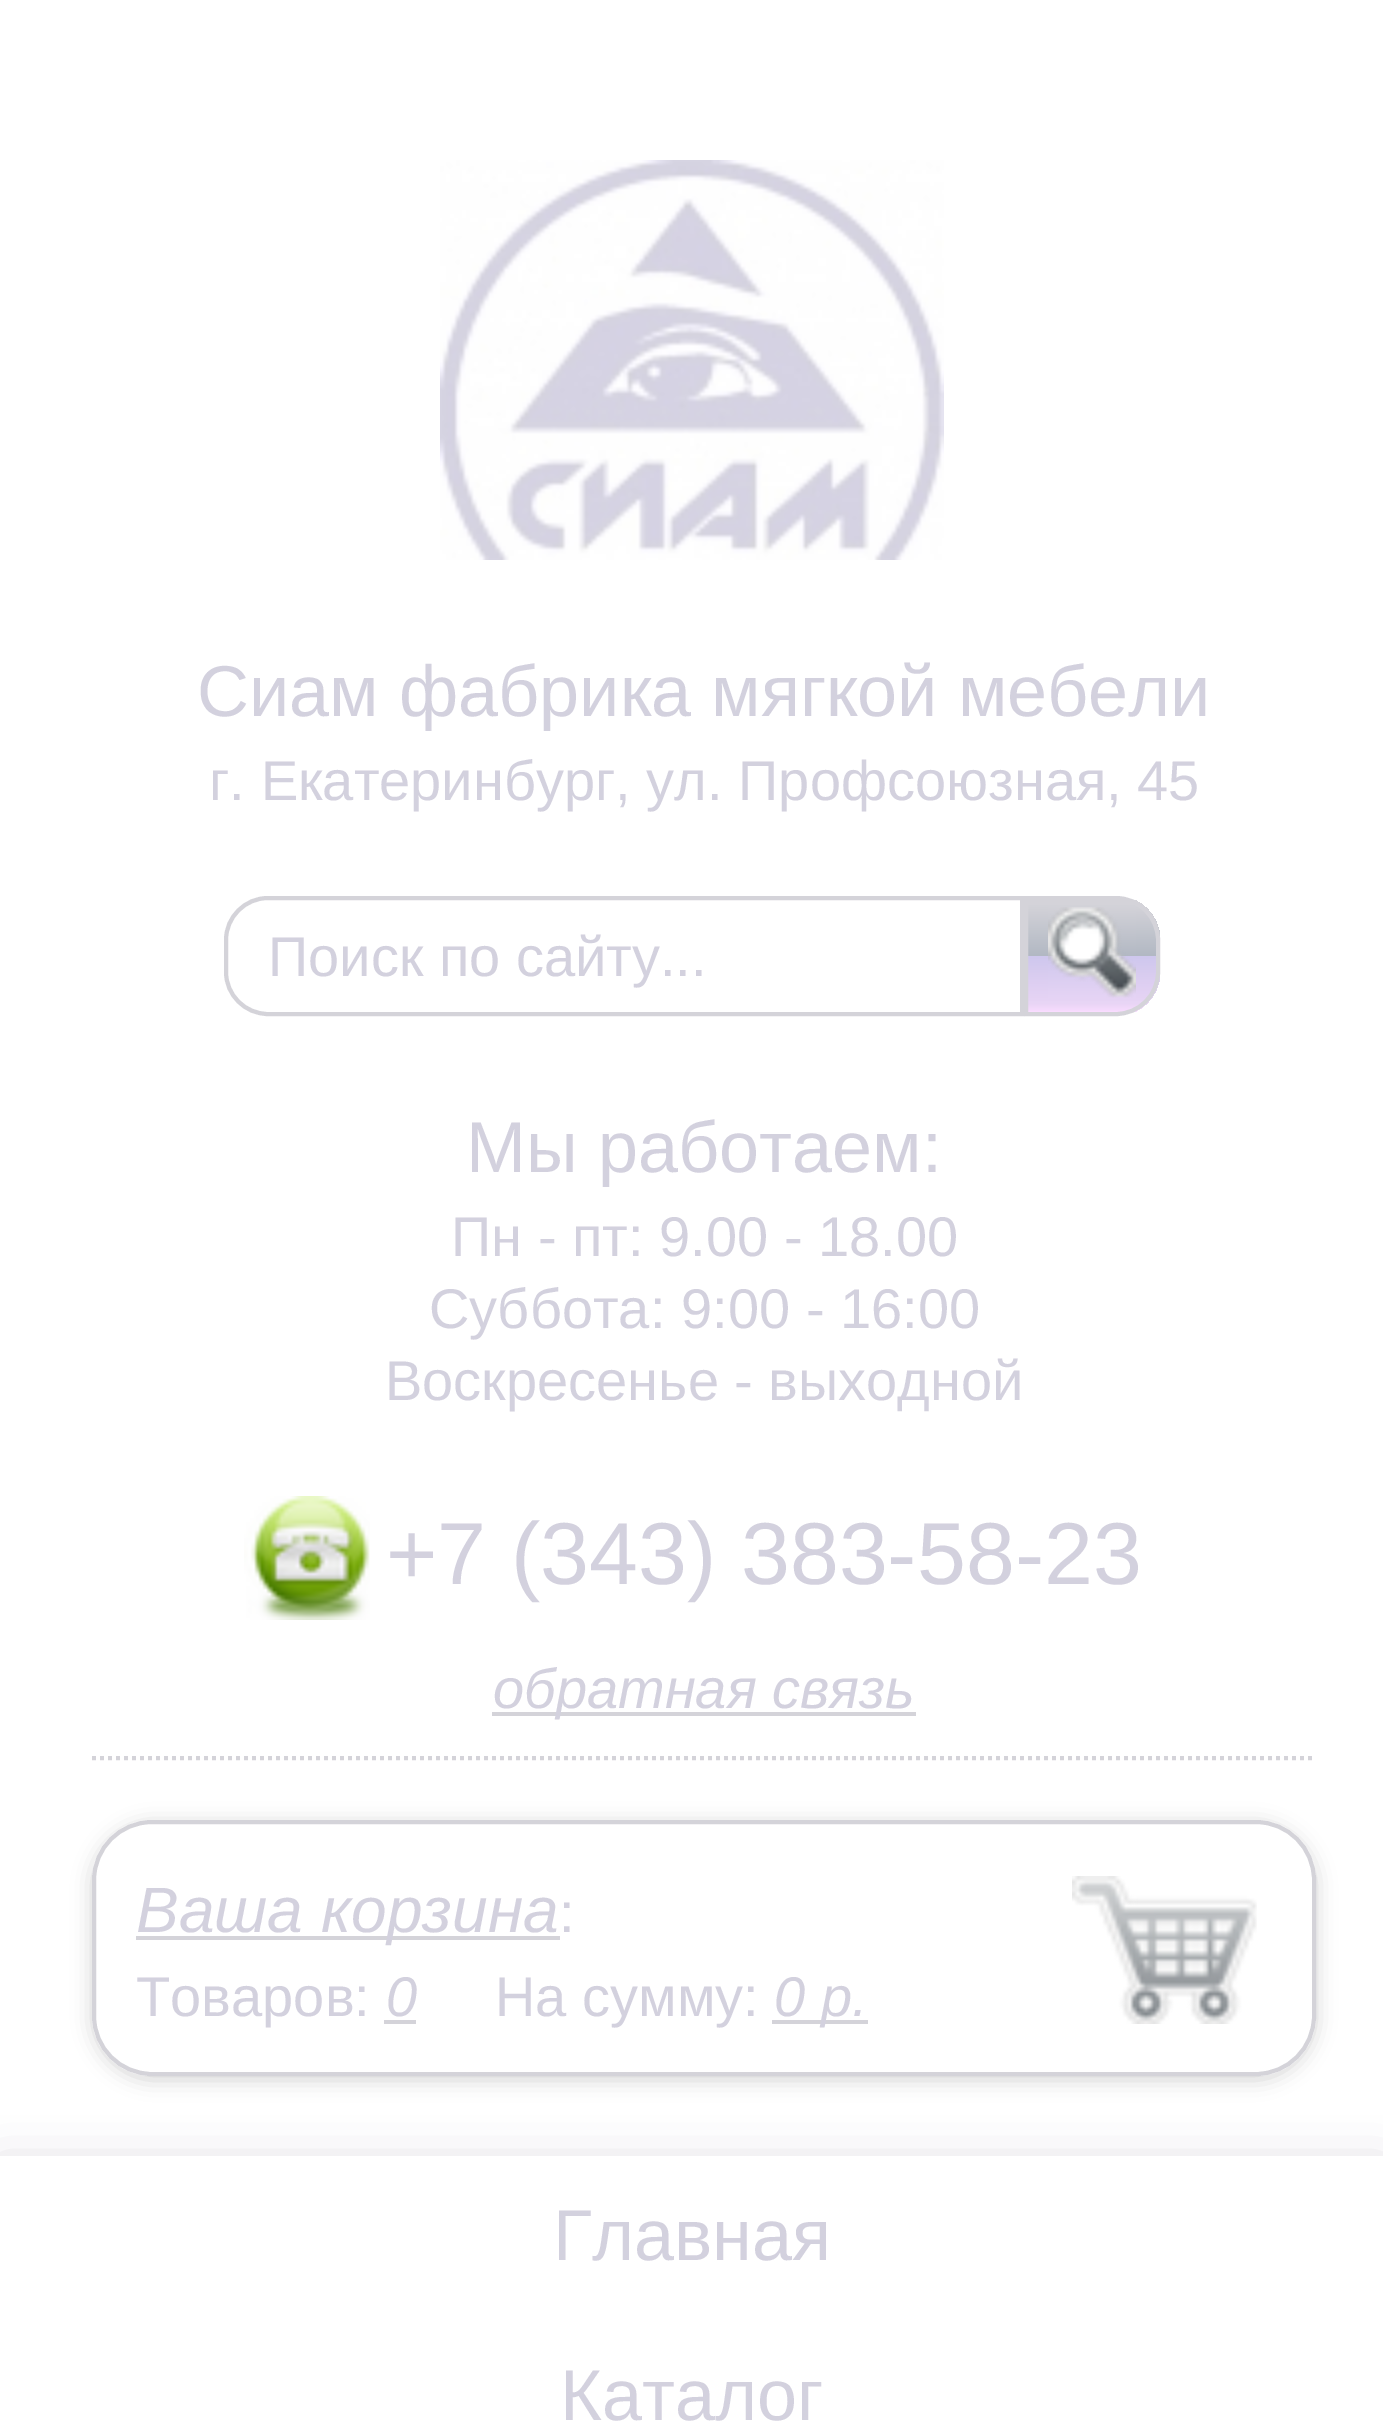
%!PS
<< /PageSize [1383 2435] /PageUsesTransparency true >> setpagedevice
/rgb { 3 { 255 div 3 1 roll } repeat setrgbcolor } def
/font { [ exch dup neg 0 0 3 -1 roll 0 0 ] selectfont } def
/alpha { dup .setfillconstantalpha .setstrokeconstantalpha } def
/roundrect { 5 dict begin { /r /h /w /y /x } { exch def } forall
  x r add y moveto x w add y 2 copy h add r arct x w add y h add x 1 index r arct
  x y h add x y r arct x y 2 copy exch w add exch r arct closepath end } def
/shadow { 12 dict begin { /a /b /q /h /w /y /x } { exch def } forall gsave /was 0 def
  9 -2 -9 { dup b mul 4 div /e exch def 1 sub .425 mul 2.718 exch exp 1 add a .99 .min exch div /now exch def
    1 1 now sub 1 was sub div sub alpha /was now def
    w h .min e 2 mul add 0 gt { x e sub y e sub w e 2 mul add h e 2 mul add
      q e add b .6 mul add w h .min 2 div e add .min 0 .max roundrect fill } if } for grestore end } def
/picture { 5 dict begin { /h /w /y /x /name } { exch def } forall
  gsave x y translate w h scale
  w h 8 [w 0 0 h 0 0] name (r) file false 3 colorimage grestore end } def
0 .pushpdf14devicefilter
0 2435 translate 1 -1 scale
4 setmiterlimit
255 255 255 rgb
0 0 1383 2435 rectfill
(img/1.rgb) 440 160 504 400 picture
212 211 217 rgb
4 setlinewidth
268 898 moveto 1022 898 lineto 1022 1014 lineto 268 1014 lineto 245 1014 226 995 226 972 curveto 226 940 lineto 226 917 245 898 268 898 curveto closepath stroke
gsave
1024 896 moveto 1116 896 lineto 1140.5 896 1160 915.5 1160 940 curveto 1160 972 lineto 1160 996.5 1140.5 1016 1116 1016 curveto 1024 1016 lineto closepath clip newpath
gsave 1028 900 moveto 1160 900 lineto 1160 1012 lineto 1028 1012 lineto closepath clip newpath
<< /ShadingType 2 /ColorSpace /DeviceRGB /Coords [1092 900 1092 1012] /Extend [true true] /Function << /FunctionType 3 /Domain [0 1] /Functions [<< /FunctionType 2 /Domain [0 1] /C0 [0.831 0.827 0.851] /C1 [0.831 0.827 0.851] /N 1 >> << /FunctionType 2 /Domain [0 1] /C0 [0.831 0.827 0.851] /C1 [0.698 0.722 0.765] /N 1 >> << /FunctionType 2 /Domain [0 1] /C0 [0.808 0.78 0.929] /C1 [0.91 0.835 0.961] /N 1 >> << /FunctionType 2 /Domain [0 1] /C0 [0.91 0.835 0.961] /C1 [0.976 0.863 1] /N 1 >>] /Bounds [0.04 0.5 0.92] /Encode [0 1 0 1 0 1 0 1] >> >> shfill grestore
grestore
1026 898 moveto 1116 898 lineto 1139 898 1158 917 1158 940 curveto 1158 972 lineto 1158 995 1139 1014 1116 1014 curveto 1026 1014 lineto closepath stroke
(img/2.rgb) 1048 907 88 91 picture
[4 4] 0 setdash
92 1758 moveto 1316 1758 lineto stroke
(img/3.rgb) 244 1496 126 124 picture
492 1712 424 4 rectfill
211 211 211 rgb
92 1824 1224 256 60 10 1 shadow
255 255 255 rgb
92 1820 1224 256 60 roundrect fill
(img/4.rgb) 1072 1876 185 148 picture
212 211 217 rgb
[] 0 setdash
94 1822 1220 252 58 roundrect stroke
[
  [136 1936 424 4 212 211 217]
  [384 2020 32 4 212 211 217]
  [772 2020 96 4 212 211 217]
] { aload pop rgb rectfill } forall
gsave
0 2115 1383 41 rectclip
0 2168 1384 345 0 26 1 shadow
grestore
/LiberationSans-Regular 72 font
211 209 222 rgb
197 716 moveto (Сиам фабрика мягкой мебели) show
/LiberationSans-Regular 56 font
209 800 moveto (г. Екатеринбург, ул. Профсоюзная, 45) show
268 976 moveto (Поиск по сайту...) show
/LiberationSans-Regular 72 font
466 1172 moveto (Мы работаем:) show
/LiberationSans-Regular 56 font
[
  [(Пн - пт:) 451 1256]
  [(9.00 - 18.00) 659 1256]
  [(Суббота:) 429 1328]
  [(9:00 - 16:00) 681 1328]
  [(Воскресенье -) 385 1400]
  [(выходной) 768 1400]
] { aload pop moveto show } forall
/LiberationSans-Regular 88 font
386 1584 moveto (+7 \(343\) 383-58-23) show
/LiberationSans-Italic 56 font
493 1708 moveto (обратная связь) show
/LiberationSans-Italic 64 font
136 1932 moveto (Ваша корзина) show
/LiberationSans-Regular 56 font
559 1932 moveto (:) show
136 2016 moveto (Товаров:) show
/LiberationSans-Italic 56 font
386 2016 moveto (0) show
/LiberationSans-Regular 56 font
495 2016 moveto (На сумму:) show
/LiberationSans-Italic 56 font
774 2016 moveto (0 р.) show
/LiberationSans-Regular 72 font
553 2260 moveto (Главная) show
560 2420 moveto (Каталог) show
.poppdf14devicefilter showpage
